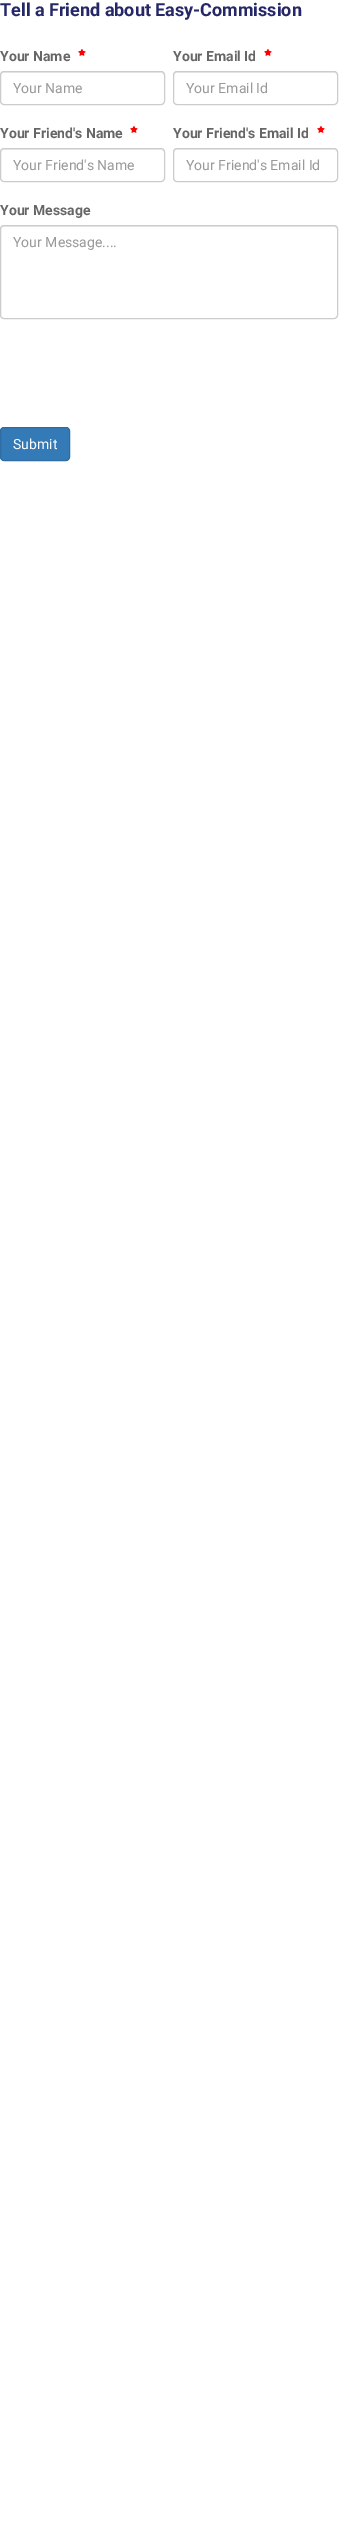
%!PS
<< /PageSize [354 2533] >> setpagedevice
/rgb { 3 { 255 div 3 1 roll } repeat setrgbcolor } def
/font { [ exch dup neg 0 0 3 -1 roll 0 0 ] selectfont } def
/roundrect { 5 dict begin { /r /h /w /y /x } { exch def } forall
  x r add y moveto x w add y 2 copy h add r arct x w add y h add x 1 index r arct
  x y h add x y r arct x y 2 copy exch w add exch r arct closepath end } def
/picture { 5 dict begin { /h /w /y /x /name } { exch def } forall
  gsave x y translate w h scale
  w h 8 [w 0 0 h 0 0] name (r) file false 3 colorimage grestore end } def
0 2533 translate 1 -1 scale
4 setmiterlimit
255 255 255 rgb
0 0 354 2533 rectfill
(img/1.rgb) 78 49 8 7 picture
236 236 236 rgb
4 73 moveto 161 73 lineto 163 73 164 74 164 76 curveto 164 74 163 72 161 72 curveto 4 72 lineto 2 72 1 74 1 76 curveto 1 74 2 73 4 73 curveto closepath fill
204 204 204 rgb
0.5 71.5 164 33 3.5 roundrect stroke
(img/1.rgb) 264 49 8 7 picture
236 236 236 rgb
177 73 moveto 334 73 lineto 336 73 337 74 337 76 curveto 337 74 336 72 334 72 curveto 177 72 lineto 175 72 174 74 174 76 curveto 174 74 175 73 177 73 curveto closepath fill
204 204 204 rgb
173.5 71.5 164 33 3.5 roundrect stroke
(img/1.rgb) 130 126 8 7 picture
236 236 236 rgb
4 150 moveto 161 150 lineto 163 150 164 151 164 153 curveto 164 151 163 149 161 149 curveto 4 149 lineto 2 149 1 151 1 153 curveto 1 151 2 150 4 150 curveto closepath fill
204 204 204 rgb
0.5 148.5 164 33 3.5 roundrect stroke
(img/1.rgb) 317 126 8 7 picture
236 236 236 rgb
177 150 moveto 334 150 lineto 336 150 337 151 337 153 curveto 337 151 336 149 334 149 curveto 177 149 lineto 175 149 174 151 174 153 curveto 174 151 175 150 177 150 curveto closepath fill
204 204 204 rgb
173.5 148.5 164 33 3.5 roundrect stroke
236 236 236 rgb
4 227 moveto 334 227 lineto 336 227 337 228 337 230 curveto 337 228 336 226 334 226 curveto 4 226 lineto 2 226 1 228 1 230 curveto 1 228 2 227 4 227 curveto closepath fill
204 204 204 rgb
0.5 225.5 337 93 3.5 roundrect stroke
51 122 183 rgb
0.5 427.5 69 33 3.5 roundrect gsave fill grestore
46 109 164 rgb
stroke
/Roboto-Bold 18 font
37 39 103 rgb
0 16 moveto (Tell a Friend about Easy-Commission) show
/Roboto-Bold 14 font
102 102 102 rgb
0 61 moveto (Your Name) show
/Roboto-Regular 14 font
153 153 153 rgb
13 93 moveto (Your Name) show
/Roboto-Bold 14 font
102 102 102 rgb
173 61 moveto (Your Email Id) show
/Roboto-Regular 14 font
153 153 153 rgb
186 93 moveto (Your Email Id) show
/Roboto-Bold 14 font
102 102 102 rgb
0 138 moveto (Your Friend's Name) show
/Roboto-Regular 14 font
153 153 153 rgb
13 170 moveto (Your Friend's Name) show
/Roboto-Bold 14 font
102 102 102 rgb
173 138 moveto (Your Friend's Email Id) show
/Roboto-Regular 14 font
153 153 153 rgb
186 170 moveto (Your Friend's Email Id) show
/Roboto-Bold 14 font
102 102 102 rgb
0 215 moveto (Your Message) show
/Roboto-Regular 14 font
153 153 153 rgb
13 247 moveto (Your Message....) show
255 255 255 rgb
13 449 moveto (Submit) show
showpage
